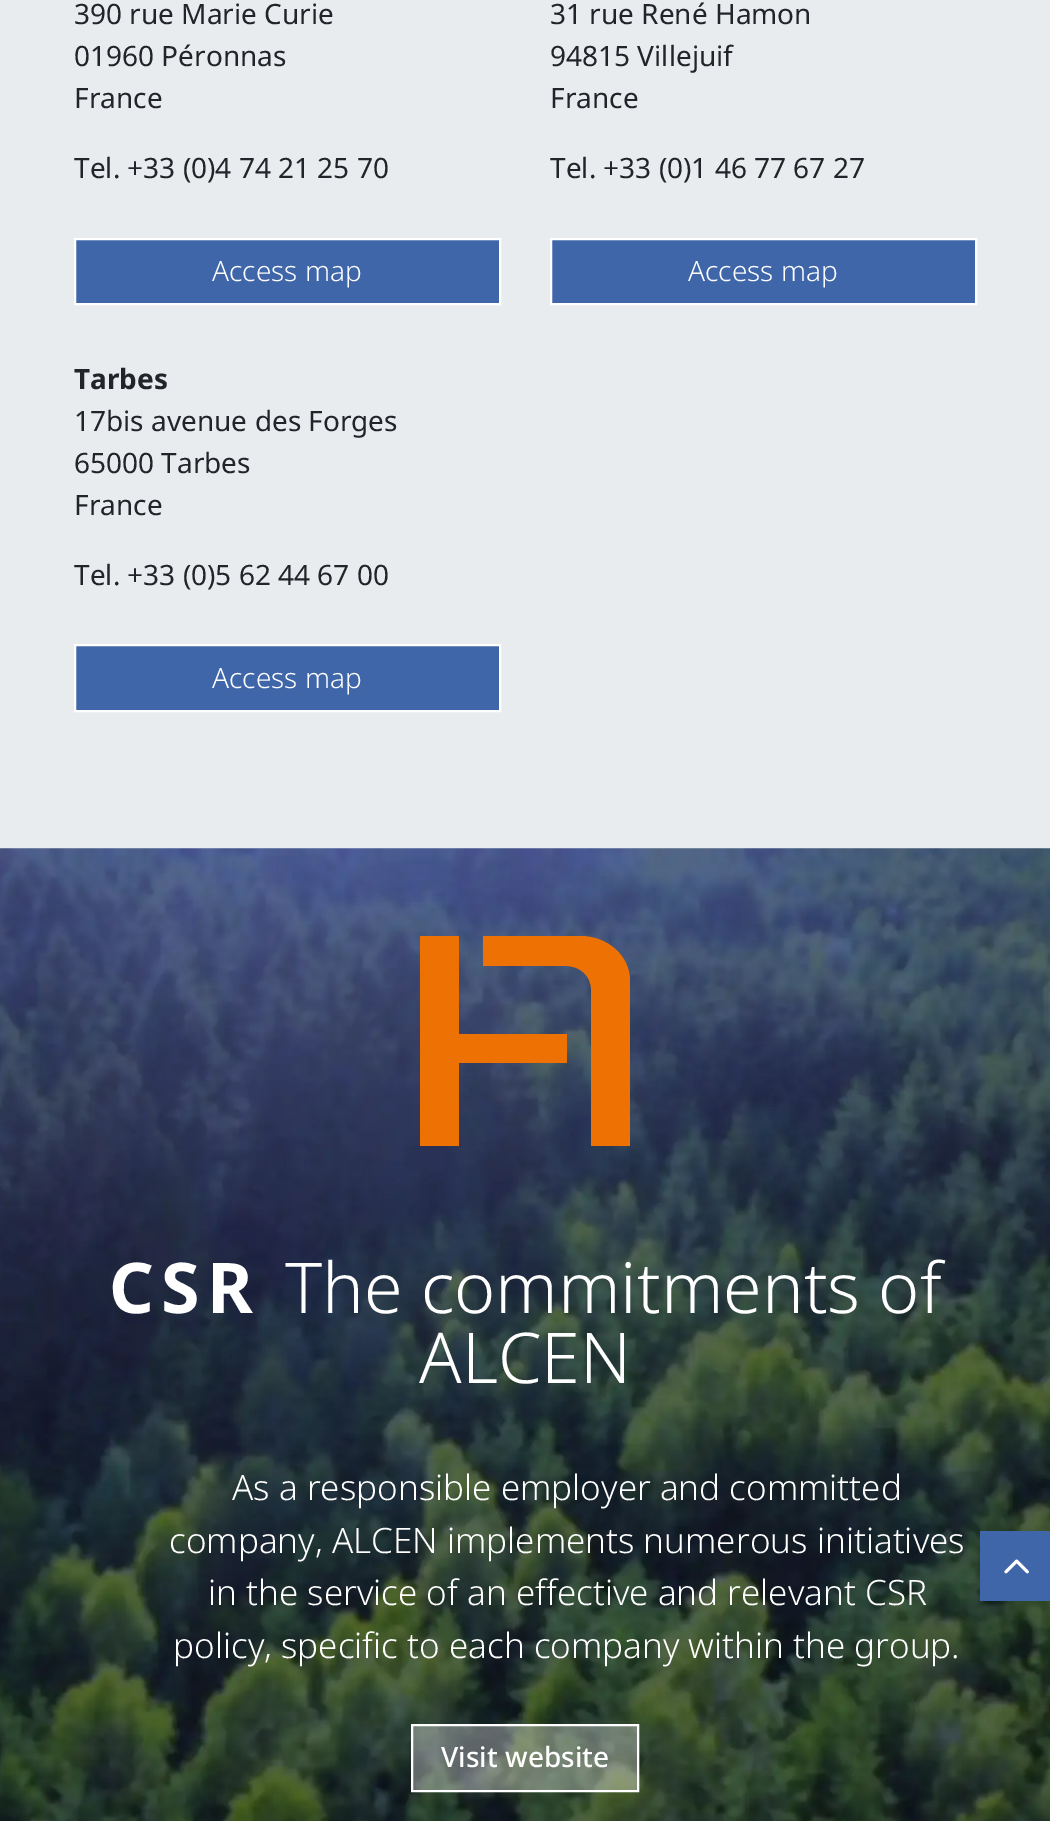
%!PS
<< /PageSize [1050 1821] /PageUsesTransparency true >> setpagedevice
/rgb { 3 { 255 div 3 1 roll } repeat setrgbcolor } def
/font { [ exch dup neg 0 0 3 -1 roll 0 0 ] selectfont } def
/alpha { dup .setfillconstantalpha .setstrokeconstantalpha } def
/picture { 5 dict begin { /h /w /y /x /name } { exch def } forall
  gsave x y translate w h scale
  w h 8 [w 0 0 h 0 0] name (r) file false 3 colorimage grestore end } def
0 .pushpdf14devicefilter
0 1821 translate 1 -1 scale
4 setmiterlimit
233 236 239 rgb
0 0 1050 1821 rectfill
64 102 170 rgb
75 239 moveto 500 239 lineto 500 304 lineto 75 304 lineto closepath gsave fill grestore
255 255 255 rgb
2 setlinewidth
stroke
64 102 170 rgb
551 239 moveto 976 239 lineto 976 304 lineto 551 304 lineto closepath gsave fill grestore
255 255 255 rgb
stroke
64 102 170 rgb
75 645 moveto 500 645 lineto 500 711 lineto 75 711 lineto closepath gsave fill grestore
255 255 255 rgb
stroke
(img/1.rgb) 0 848 1050 973 picture
238 114 3 rgb
580 936 moveto 608 936 630 956 630 981 curveto 630 1146 lineto 591 1146 lineto 591 989 lineto 591 976 580 966 566 966 curveto 483 966 lineto 483 936 lineto closepath eofill
459 1034 moveto 567 1034 lineto 567 1063 lineto 459 1063 lineto 459 1146 lineto 420 1146 lineto 420 936 lineto 459 936 lineto closepath eofill
0.33 alpha
255 255 255 rgb
412 1725 moveto 638 1725 lineto 638 1791 lineto 412 1791 lineto closepath fill
1 alpha
412 1725 moveto 638 1725 lineto 638 1791 lineto 412 1791 lineto closepath stroke
64 102 170 rgb
980 1531 70 70 rectfill
(img/2.rgb) 1004 1559 25 15 picture
/NotoSans-Regular 28 font
33 37 41 rgb
[
  [(390 rue Marie Curie) 74 24]
  [(01960 Péronnas) 74 66]
  [(France) 74 108]
  [(Tel. +33 \(0\)4 74 21 25 70) 74 178]
] { aload pop moveto show } forall
/NotoSans-Light 28 font
255 255 255 rgb
212 281 moveto (Access map) show
/NotoSans-Regular 28 font
33 37 41 rgb
[
  [(31 rue René Hamon) 550 24]
  [(94815 Villejuif) 550 66]
  [(France) 550 108]
  [(Tel. +33 \(0\)1 46 77 67 27) 550 178]
] { aload pop moveto show } forall
/NotoSans-Light 28 font
255 255 255 rgb
688 281 moveto (Access map) show
/NotoSans-Bold 28 font
33 37 41 rgb
74 389 moveto (Tarbes) show
/NotoSans-Regular 28 font
[
  [(17bis avenue des Forges) 74 431]
  [(65000 Tarbes) 74 473]
  [(France) 74 515]
  [(Tel. +33 \(0\)5 62 44 67 00) 74 585]
] { aload pop moveto show } forall
/NotoSans-Light 28 font
255 255 255 rgb
212 688 moveto (Access map) show
/NotoSans-Bold 70 font
109 1313 moveto 7 0 (CSR) ashow
/NotoSans-Light 70 font
285 1313 moveto (The commitments of) show
419 1383 moveto (ALCEN) show
/NotoSans-Light 35 font
[
  [(As a responsible employer and committed) 232 1500]
  [(company, ALCEN implements numerous initiatives) 169 1553]
  [(in the service of an effective and relevant CSR) 208 1605]
  [(policy, specific to each company within the group.) 173 1658]
] { aload pop moveto show } forall
/NotoSans-Medium 28 font
441 1767 moveto (Visit website) show
.poppdf14devicefilter showpage
